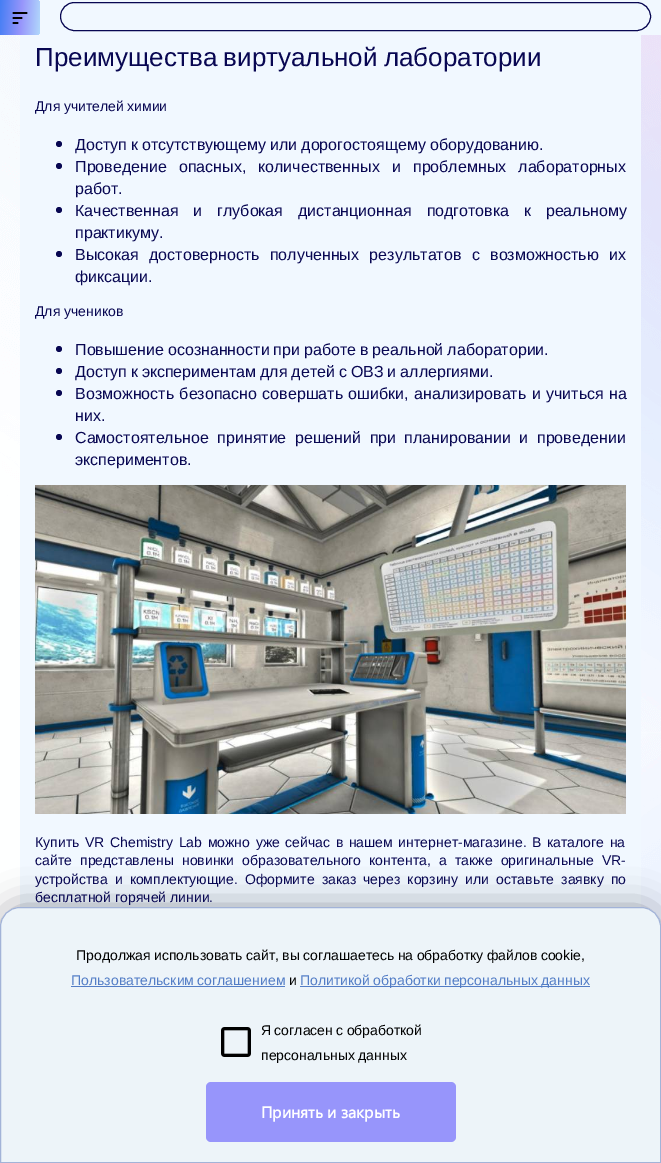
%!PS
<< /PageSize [661 1163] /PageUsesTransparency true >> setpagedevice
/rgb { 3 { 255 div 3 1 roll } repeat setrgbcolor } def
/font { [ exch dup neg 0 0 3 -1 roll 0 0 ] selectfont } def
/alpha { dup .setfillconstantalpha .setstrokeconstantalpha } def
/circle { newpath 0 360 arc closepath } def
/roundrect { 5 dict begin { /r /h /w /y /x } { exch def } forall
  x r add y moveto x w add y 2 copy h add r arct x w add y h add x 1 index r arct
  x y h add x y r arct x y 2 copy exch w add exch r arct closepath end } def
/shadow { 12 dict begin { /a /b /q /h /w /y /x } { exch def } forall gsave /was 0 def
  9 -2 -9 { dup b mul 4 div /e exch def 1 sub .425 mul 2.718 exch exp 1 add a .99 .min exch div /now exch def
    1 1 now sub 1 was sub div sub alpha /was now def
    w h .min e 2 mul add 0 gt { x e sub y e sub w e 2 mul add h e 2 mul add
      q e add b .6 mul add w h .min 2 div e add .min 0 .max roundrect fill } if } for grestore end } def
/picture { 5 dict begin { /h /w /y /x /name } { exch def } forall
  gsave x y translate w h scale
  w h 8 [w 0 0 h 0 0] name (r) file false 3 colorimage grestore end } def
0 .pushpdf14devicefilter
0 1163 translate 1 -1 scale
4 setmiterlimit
255 255 255 rgb
0 0 661 1163 rectfill
(img/1.rgb) 0 35 661 892 picture
241 248 255 rgb
35 0 626 35 rectfill
gsave 0 0 moveto 35 0 lineto 38 0 40 2 40 5 curveto 40 30 lineto 40 33 38 35 35 35 curveto 0 35 lineto closepath clip newpath
<< /ShadingType 2 /ColorSpace /DeviceRGB /Coords [-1.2 16 41 19] /Extend [true true] /Function << /FunctionType 3 /Domain [0 1] /Functions [<< /FunctionType 2 /Domain [0 1] /C0 [0.267 0.494 0.957] /C1 [0.592 0.584 0.984] /N 1 >> << /FunctionType 2 /Domain [0 1] /C0 [0.592 0.584 0.984] /C1 [0.694 0.847 0.984] /N 1 >>] /Bounds [0.53] /Encode [0 1 0 1] >> >> shfill grestore
0 0 0 rgb
1.7 setlinewidth
1 setlinecap
1 setlinejoin
13.5 13 moveto 26.5 13 lineto 13.5 18 moveto 21.5 18 lineto 13.5 23 moveto 17.5 23 lineto stroke
8 7 82 rgb
1 setlinewidth
0 setlinecap
0 setlinejoin
60.5 2.5 590 28 14 roundrect stroke
241 248 255 rgb
20 35 621 872 rectfill
8 7 82 rgb
59 144 3 circle fill
59 166 3 circle fill
59 210 3 circle fill
59 254 3 circle fill
59 349 3 circle fill
59 371 3 circle fill
59 393 3 circle fill
59 437 3 circle fill
(img/2.rgb) 35 485 591 329 picture
56 53 73 rgb
0 907 661 256 20 18 0.47 shadow
237 244 249 rgb
20 907.5 moveto 641 907.5 lineto 652 907.5 660.5 916 660.5 927 curveto 660.5 1162.5 lineto 0.5 1162.5 lineto 0.5 927 lineto 0.5 916 9 907.5 20 907.5 curveto closepath gsave fill grestore
162 179 216 rgb
stroke
83 125 198 rgb
71 986 214 1 rectfill
300 986 290 1 rectfill
(img/3.rgb) 221 1027 30 30 picture
151 149 251 rgb
206 1082 250 60 5 roundrect fill
/LiberationSans-Regular 26 font
8 7 82 rgb
35 66 moveto -1 0 32 (Преимущества виртуальной лаборатории) widthshow
/LiberationSans-Regular 14 font
35 111 moveto -0.5 0 32 (Для учителей химии) widthshow
/LiberationSans-Regular 16 font
75 150 moveto -0.5 0 32 (Доступ к отсутствующему или дорогостоящему оборудованию.) widthshow
75 172 moveto 7.75 0 32 (Проведение опасных, количественных и проблемных лабораторных) widthshow
75 194 moveto (работ.) show
75 216 moveto 10.5 0 32 (Качественная и глубокая дистанционная подготовка к реальному) widthshow
75 238 moveto (практикуму.) show
75 260 moveto 6 0 32 (Высокая достоверность полученных результатов с возможностью их) widthshow
75 282 moveto (фиксации.) show
/LiberationSans-Regular 14 font
35 316 moveto (Для учеников) show
/LiberationSans-Regular 16 font
75 355 moveto -0.5 0 32 (Повышение осознанности при работе в реальной лаборатории.) widthshow
75 377 moveto -0.5 0 32 (Доступ к экспериментам для детей с ОВЗ и аллергиями.) widthshow
75 399 moveto 1 0 32 (Возможность безопасно совершать ошибки, анализировать и учиться на) widthshow
75 421 moveto (них.) show
75 443 moveto 4 0 32 (Самостоятельное принятие решений при планировании и проведении) widthshow
75 465 moveto (экспериментов.) show
/LiberationSans-Regular 14 font
35 847 moveto 1.75 0 32 (Купить VR Chemistry Lab можно уже сейчас в нашем интернет-магазине. В каталоге на) widthshow
35 865 moveto 4.25 0 32 (сайте представлены новинки образовательного контента, а также оригинальные VR-) widthshow
35 884 moveto 3.25 0 32 (устройства и комплектующие. Оформите заказ через корзину или оставьте заявку по) widthshow
35 902 moveto (бесплатной горячей линии.) show
0 0 0 rgb
76 960 moveto -0.5 0 32 (Продолжая использовать сайт, вы соглашаетесь на обработку файлов cookie,) widthshow
83 125 198 rgb
71 985 moveto -0.5 0 32 (Пользовательским соглашением) widthshow
0 0 0 rgb
289 985 moveto (и) show
83 125 198 rgb
300 985 moveto -0.5 0 32 (Политикой обработки персональных данных) widthshow
0 0 0 rgb
261 1035 moveto -0.5 0 32 (Я согласен с обработкой) widthshow
261 1060 moveto -0.5 0 32 (персональных данных) widthshow
/SegoeUI-Bold 16 font
255 255 255 rgb
261 1118 moveto (Принять и закрыть) show
.poppdf14devicefilter showpage
